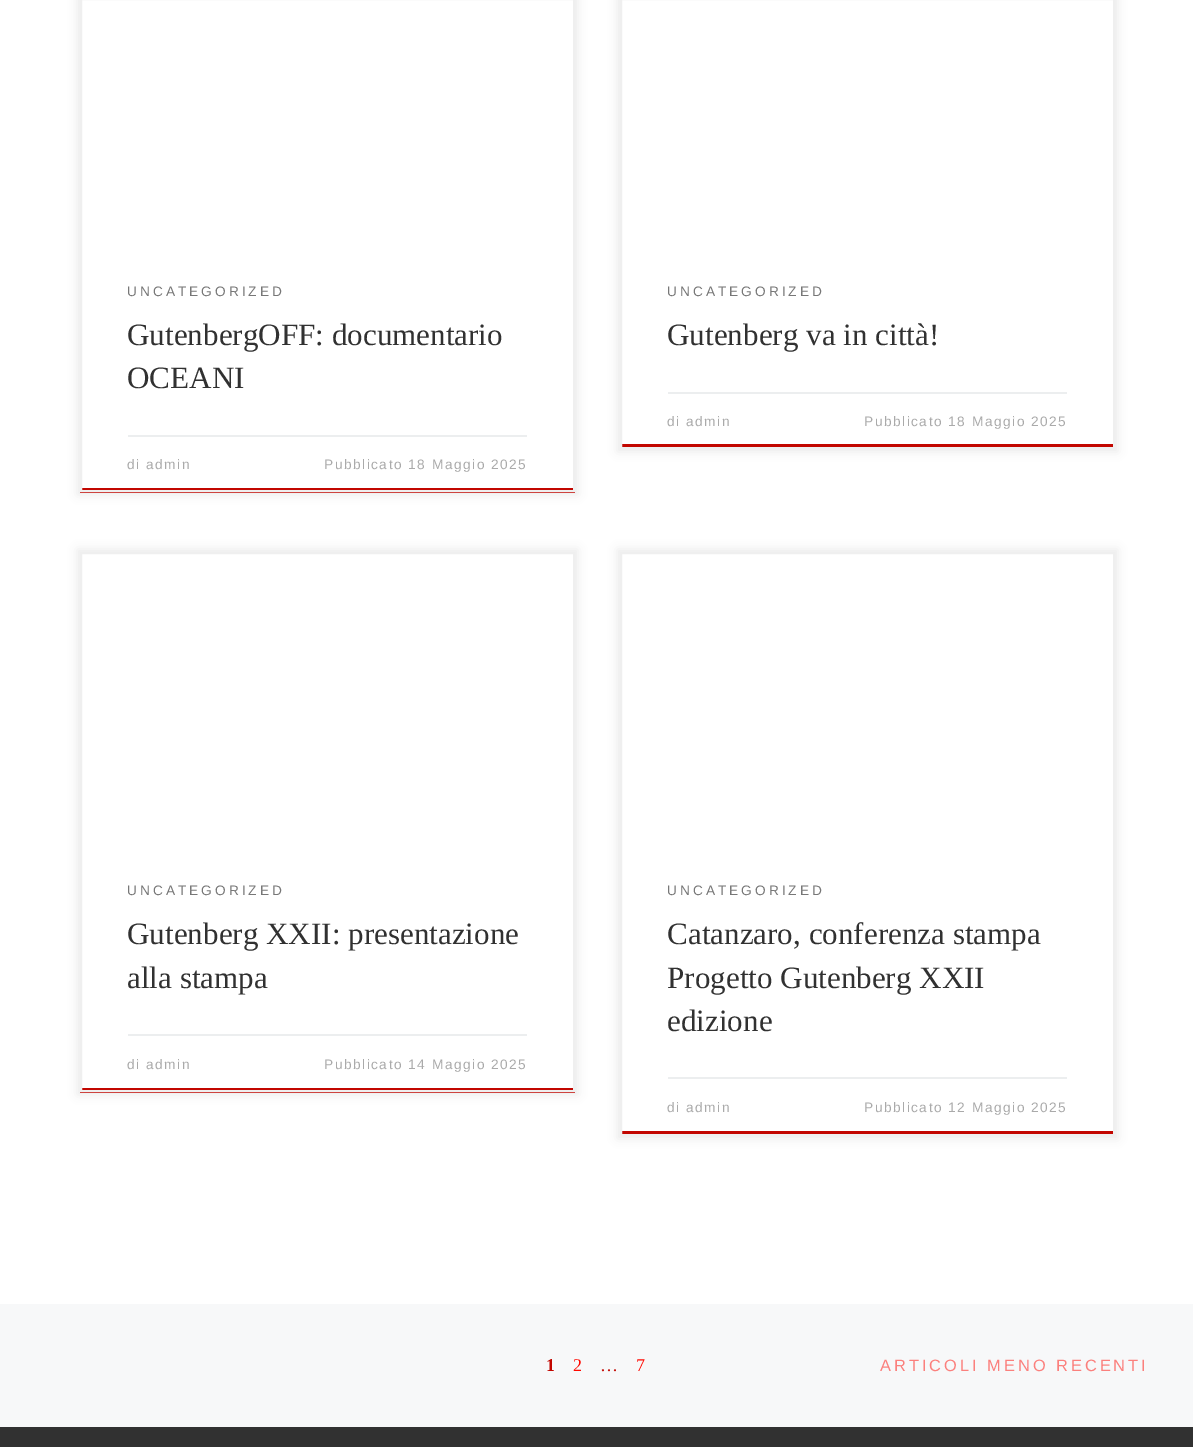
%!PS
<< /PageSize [1193 1447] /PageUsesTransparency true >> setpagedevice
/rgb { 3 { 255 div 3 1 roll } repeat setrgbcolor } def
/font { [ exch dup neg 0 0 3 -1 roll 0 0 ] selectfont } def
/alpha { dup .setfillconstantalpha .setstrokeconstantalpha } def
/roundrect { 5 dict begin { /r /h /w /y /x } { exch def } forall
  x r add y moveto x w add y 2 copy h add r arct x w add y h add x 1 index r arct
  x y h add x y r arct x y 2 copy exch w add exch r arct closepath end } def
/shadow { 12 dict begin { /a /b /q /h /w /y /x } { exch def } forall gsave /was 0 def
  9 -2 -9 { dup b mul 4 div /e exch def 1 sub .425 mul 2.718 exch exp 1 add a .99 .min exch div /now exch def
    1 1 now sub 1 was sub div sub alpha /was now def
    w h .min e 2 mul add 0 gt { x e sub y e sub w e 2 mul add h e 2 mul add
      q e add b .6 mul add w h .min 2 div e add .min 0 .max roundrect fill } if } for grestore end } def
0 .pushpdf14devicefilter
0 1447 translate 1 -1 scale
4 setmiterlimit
255 255 255 rgb
0 0 1193 1447 rectfill
0 0 0 rgb
77 -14 501 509 0 4.5 0.07 shadow
255 255 255 rgb
82 0 491 488 rectfill
194 6 0 rgb
80 488 495 5 rectfill
239 239 239 rgb
2 setlinewidth
81 -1 493 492 rectstroke
236 238 239 rgb
128 435 399 2 rectfill
0 0 0 rgb
617 -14 501 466 0 4.5 0.07 shadow
255 255 255 rgb
622 0 491 444 rectfill
194 6 0 rgb
620 444 495 3 rectfill
239 239 239 rgb
621 -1 493 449 rectstroke
236 238 239 rgb
668 392 399 2 rectfill
0 0 0 rgb
77 549 501 546 0 4.5 0.07 shadow
255 255 255 rgb
82 554 491 534 rectfill
194 6 0 rgb
80 1088 495 5 rectfill
239 239 239 rgb
81 553 493 538 rectstroke
236 238 239 rgb
128 1034 399 2 rectfill
0 0 0 rgb
617 549 501 590 0 4.5 0.07 shadow
255 255 255 rgb
622 554 491 577 rectfill
194 6 0 rgb
620 1131 495 3 rectfill
239 239 239 rgb
621 553 493 582 rectstroke
[
  [668 1077 399 2 236 238 239]
  [0 1304 1193 123 247 248 249]
  [0 1427 1193 20 49 49 49]
] { aload pop rgb rectfill } forall
/LiberationSans-Regular 13.7 font
119 119 119 rgb
127 296 moveto 3 0 (UNCATEGORIZED) ashow
/LiberationSerif-Regular 31.1 font
49 49 49 rgb
127 345 moveto (GutenbergOFF: documentario) show
127 388 moveto (OCEANI) show
/LiberationSans-Regular 13.7 font
170 170 170 rgb
127 469 moveto 1.5 0 (di admin) ashow
324 469 moveto 1.5 0 (Pubblicato 18 Maggio 2025) ashow
119 119 119 rgb
667 296 moveto 3 0 (UNCATEGORIZED) ashow
/LiberationSerif-Regular 31.1 font
49 49 49 rgb
667 345 moveto (Gutenberg va in città!) show
/LiberationSans-Regular 13.7 font
170 170 170 rgb
667 426 moveto 1.5 0 (di admin) ashow
864 426 moveto 1.5 0 (Pubblicato 18 Maggio 2025) ashow
119 119 119 rgb
127 895 moveto 3 0 (UNCATEGORIZED) ashow
/LiberationSerif-Regular 31.1 font
49 49 49 rgb
127 944 moveto (Gutenberg XXII: presentazione) show
127 988 moveto (alla stampa) show
/LiberationSans-Regular 13.7 font
170 170 170 rgb
127 1069 moveto 1.5 0 (di admin) ashow
324 1069 moveto 1.5 0 (Pubblicato 14 Maggio 2025) ashow
119 119 119 rgb
667 895 moveto 3 0 (UNCATEGORIZED) ashow
/LiberationSerif-Regular 31.1 font
49 49 49 rgb
[
  [(Catanzaro, conferenza stampa) 667 944]
  [(Progetto Gutenberg XXII) 667 988]
  [(edizione) 667 1031]
] { aload pop moveto show } forall
/LiberationSans-Regular 13.7 font
170 170 170 rgb
667 1112 moveto 1.5 0 (di admin) ashow
864 1112 moveto 1.5 0 (Pubblicato 12 Maggio 2025) ashow
/LiberationSerif-Bold 18 font
194 6 0 rgb
546 1371 moveto 3 0 (1) ashow
/LiberationSerif-Regular 18 font
255 8 0 rgb
573 1371 moveto 3 0 (2) ashow
194 6 0 rgb
600 1371 moveto 3 0 (…) ashow
255 8 0 rgb
636 1371 moveto 3 0 (7) ashow
/LiberationSans-Regular 16.4 font
251 128 125 rgb
880 1371 moveto 3 0 (ARTICOLI MENO RECENTI) ashow
.poppdf14devicefilter showpage
